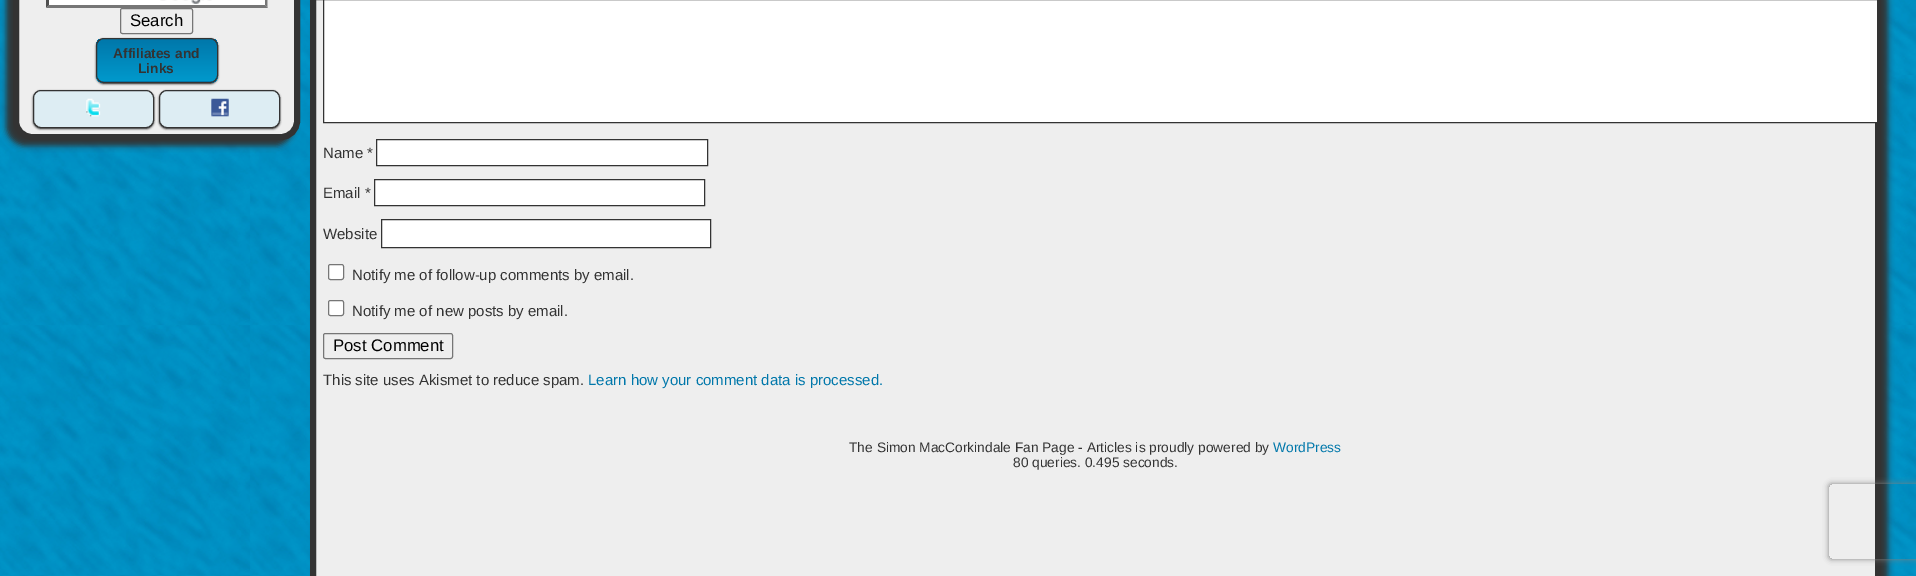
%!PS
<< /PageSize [1916 576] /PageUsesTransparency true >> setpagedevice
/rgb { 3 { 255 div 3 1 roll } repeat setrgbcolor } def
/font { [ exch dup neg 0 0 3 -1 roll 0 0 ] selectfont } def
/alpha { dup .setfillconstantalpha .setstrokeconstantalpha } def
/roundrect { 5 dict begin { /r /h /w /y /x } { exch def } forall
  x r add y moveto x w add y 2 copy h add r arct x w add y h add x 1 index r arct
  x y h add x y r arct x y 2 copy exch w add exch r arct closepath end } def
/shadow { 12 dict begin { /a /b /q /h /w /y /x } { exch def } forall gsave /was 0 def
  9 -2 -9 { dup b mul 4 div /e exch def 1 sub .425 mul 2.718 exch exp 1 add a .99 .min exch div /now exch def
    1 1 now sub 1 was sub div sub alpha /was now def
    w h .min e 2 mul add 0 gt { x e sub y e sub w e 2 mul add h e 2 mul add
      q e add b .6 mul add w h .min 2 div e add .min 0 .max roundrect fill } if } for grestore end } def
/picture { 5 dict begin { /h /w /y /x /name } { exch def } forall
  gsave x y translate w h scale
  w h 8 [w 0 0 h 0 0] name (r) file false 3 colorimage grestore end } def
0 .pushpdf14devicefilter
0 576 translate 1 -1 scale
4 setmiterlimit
255 255 255 rgb
0 0 1916 576 rectfill
(img/1.rgb) 0 0 1916 576 picture
51 51 51 rgb
6 -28 288 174 19 3 1 shadow
238 238 238 rgb
16 -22 281 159 16 roundrect gsave fill grestore
51 51 51 rgb
6 setlinewidth
stroke
255 255 255 rgb
46 0 222 8 rectfill
(img/2.rgb) 160 0 52 4 picture
118 118 118 rgb
267.5 -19 moveto 267.5 7.5 lineto 265 5 lineto 265 -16 lineto closepath fill
268 8 moveto 46 8 lineto 49 5 lineto 265 5 lineto closepath fill
79 79 79 rgb
46 7.5 moveto 46 -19 lineto 49 -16 lineto 49 5 lineto closepath fill
118 118 118 rgb
1 setlinewidth
120.5 8.5 72 25 2 roundrect stroke
51 51 51 rgb
96 39 122 45 8 1 1 shadow
gsave
96 38 122 45 8 roundrect clip newpath
gsave 96 39 moveto 218 39 lineto 218 81 lineto 96 81 lineto closepath clip newpath
<< /ShadingType 2 /ColorSpace /DeviceRGB /Coords [157 39 157 81] /Extend [true true] /Function << /FunctionType 2 /Domain [0 1] /C0 [0 0.467 0.667] /C1 [0 0.6 0.8] /N 1 >> >> shfill grestore
gsave 96 81 moveto 218 81 lineto 218 83 lineto 96 83 lineto closepath clip newpath
<< /ShadingType 2 /ColorSpace /DeviceRGB /Coords [157 81 157 124] /Extend [true true] /Function << /FunctionType 2 /Domain [0 1] /C0 [0 0.467 0.667] /C1 [0 0.6 0.8] /N 1 >> >> shfill grestore
grestore
96.5 38.5 121 44 7.5 roundrect stroke
33 91 121 38 8 1 1 shadow
221 237 243 rgb
33.5 90.5 120 37 7.5 roundrect gsave fill grestore
51 51 51 rgb
stroke
(img/3.rgb) 86 98 15 19 picture
159 91 121 38 8 1 1 shadow
221 237 243 rgb
159.5 90.5 120 37 7.5 roundrect gsave fill grestore
51 51 51 rgb
stroke
(img/4.rgb) 211 98 18 19 picture
316 -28 1572 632 19 3 1 shadow
238 238 238 rgb
313 -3 moveto 1878 -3 lineto 1878 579 lineto 313 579 lineto closepath gsave fill grestore
51 51 51 rgb
6 setlinewidth
stroke
255 255 255 rgb
323.5 -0.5 moveto 1877.5 -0.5 lineto 1877.5 122.5 lineto 323.5 122.5 lineto closepath gsave fill grestore
51 51 51 rgb
1 setlinewidth
stroke
255 255 255 rgb
376.5 139.5 moveto 707.5 139.5 lineto 707.5 165.5 lineto 376.5 165.5 lineto closepath gsave fill grestore
51 51 51 rgb
stroke
255 255 255 rgb
374.5 179.5 moveto 704.5 179.5 lineto 704.5 205.5 lineto 374.5 205.5 lineto closepath gsave fill grestore
51 51 51 rgb
stroke
255 255 255 rgb
381.5 219.5 moveto 710.5 219.5 lineto 710.5 247.5 lineto 381.5 247.5 lineto closepath gsave fill grestore
51 51 51 rgb
stroke
255 255 255 rgb
328.5 264.5 15 15 2 roundrect gsave fill grestore
118 118 118 rgb
stroke
255 255 255 rgb
328.5 300.5 15 15 2 roundrect gsave fill grestore
118 118 118 rgb
stroke
323.5 333.5 129 25 2 roundrect stroke
gsave
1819 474 moveto 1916 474 lineto 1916 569 lineto 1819 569 lineto closepath 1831.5 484 moveto 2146.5 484 lineto 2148 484 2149 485 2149 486.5 curveto 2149 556.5 lineto 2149 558 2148 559 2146.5 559 curveto 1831.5 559 lineto 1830 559 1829 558 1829 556.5 curveto 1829 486.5 lineto 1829 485 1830 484 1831.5 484 curveto closepath eoclip newpath
128 128 128 rgb
1829 484 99 75 2.5 3 1 shadow
grestore
/LiberationSans-Regular 16.75 font
0 0 0 rgb
130 26 moveto (Search) show
/LiberationSans-Bold 13.75 font
51 51 51 rgb
113 58 moveto (Affiliates and) show
138 73 moveto (Links) show
/LiberationSans-Regular 15 font
[
  [(Name *) 323 158]
  [(Email *) 323 198]
  [(Website) 323 239]
  [(Notify me of follow-up comments by email.) 352 280]
  [(Notify me of new posts by email.) 352 316]
] { aload pop moveto show } forall
/LiberationSans-Regular 16.75 font
0 0 0 rgb
333 351 moveto (Post Comment) show
/LiberationSans-Regular 15 font
51 51 51 rgb
323 385 moveto (This site uses Akismet to reduce spam.) show
0 119 170 rgb
588 385 moveto (Learn how your comment data is processed.) show
/LiberationSans-Regular 13.75 font
51 51 51 rgb
849 452 moveto (The Simon MacCorkindale Fan Page - Articles is proudly powered by) show
0 119 170 rgb
1273 452 moveto (WordPress) show
51 51 51 rgb
1013 467 moveto (80 queries. 0.495 seconds.) show
.poppdf14devicefilter showpage
